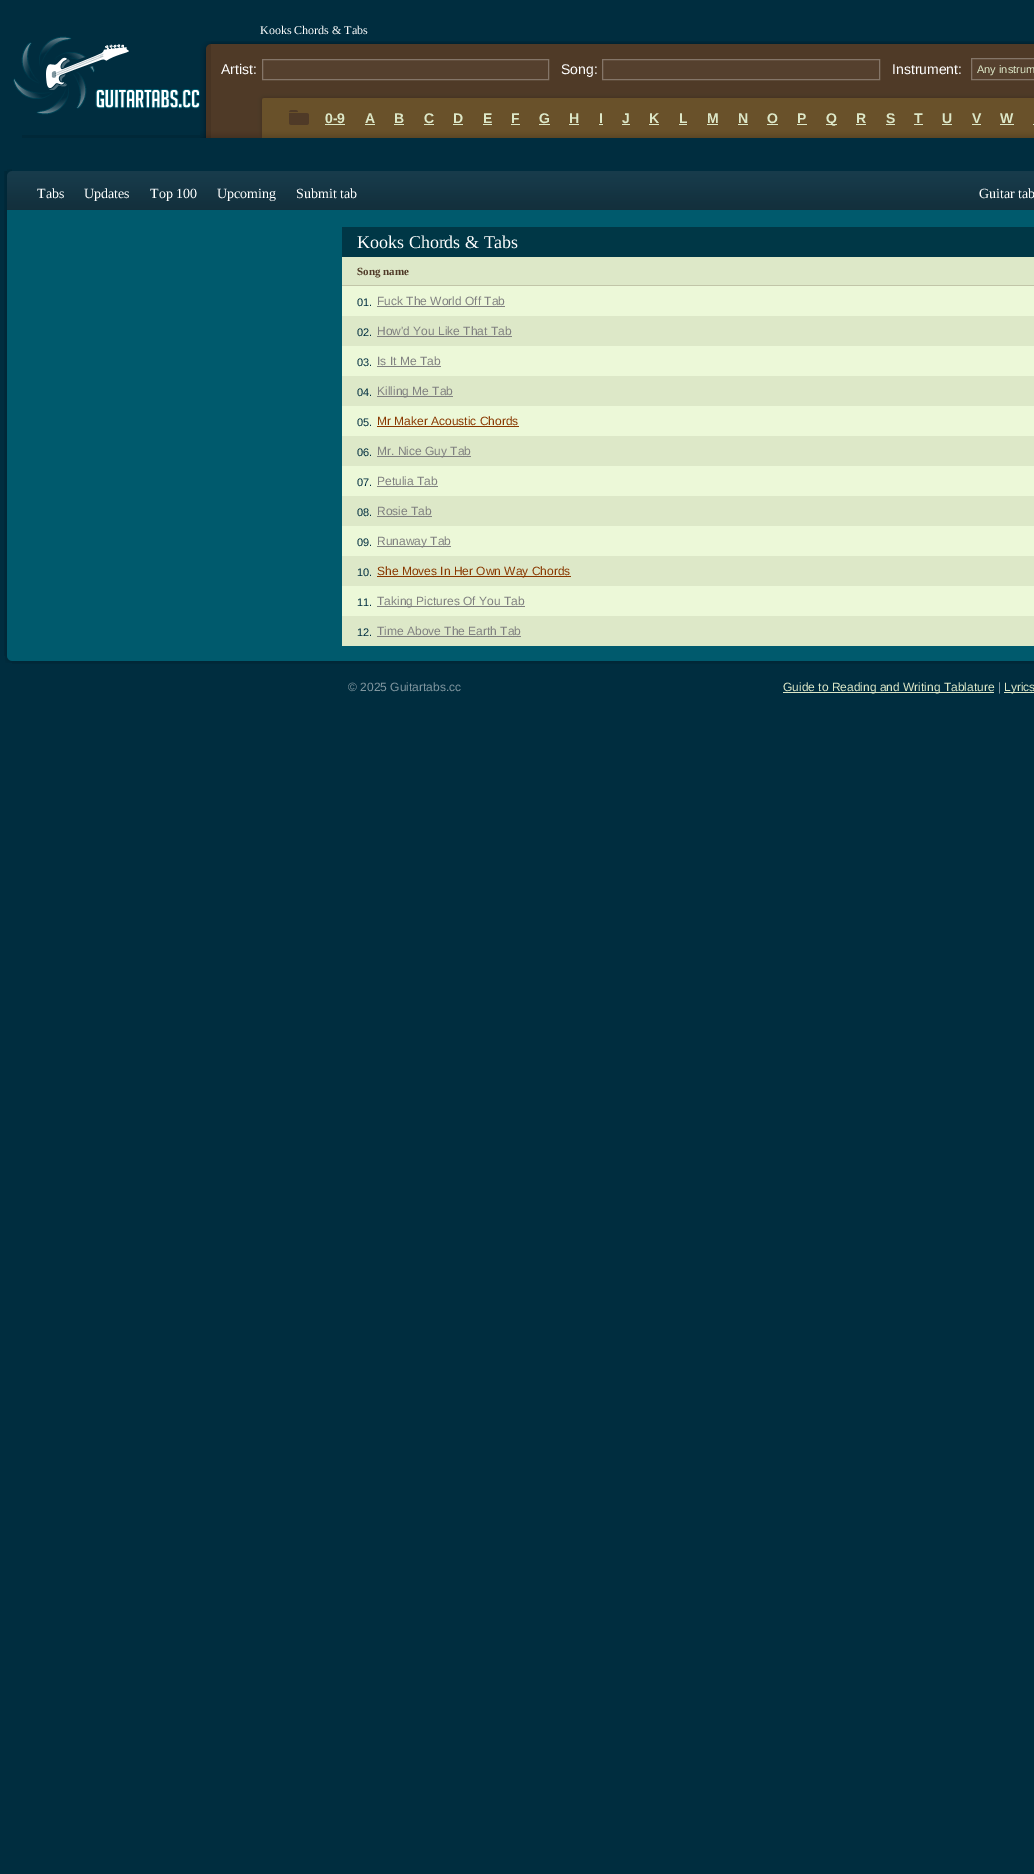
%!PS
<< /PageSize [1034 1874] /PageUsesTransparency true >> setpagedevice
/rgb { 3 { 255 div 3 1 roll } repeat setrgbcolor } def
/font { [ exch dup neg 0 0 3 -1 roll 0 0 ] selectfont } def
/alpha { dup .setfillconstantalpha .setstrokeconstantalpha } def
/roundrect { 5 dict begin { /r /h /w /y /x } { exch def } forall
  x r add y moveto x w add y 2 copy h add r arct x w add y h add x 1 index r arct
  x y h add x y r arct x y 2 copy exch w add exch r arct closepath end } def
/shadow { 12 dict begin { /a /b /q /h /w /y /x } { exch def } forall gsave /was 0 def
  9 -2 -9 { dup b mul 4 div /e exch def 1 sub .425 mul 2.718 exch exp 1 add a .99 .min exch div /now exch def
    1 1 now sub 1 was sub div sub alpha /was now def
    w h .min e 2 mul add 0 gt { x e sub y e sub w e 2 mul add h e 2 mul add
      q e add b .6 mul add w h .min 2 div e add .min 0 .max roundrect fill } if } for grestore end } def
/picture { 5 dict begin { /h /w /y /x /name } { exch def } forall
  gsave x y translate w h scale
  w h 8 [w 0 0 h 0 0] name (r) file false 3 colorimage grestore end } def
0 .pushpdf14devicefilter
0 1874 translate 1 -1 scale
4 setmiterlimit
0 45 63 rgb
0 0 1034 1874 rectfill
0 40 56 rgb
22 135 178 3 rectfill
(img/1.rgb) 13 36 187 79 picture
(img/2.rgb) 211 41 823 97 picture
(img/3.rgb) 200 41 11 97 picture
85 64 46 rgb
262.5 59.5 moveto 548.5 59.5 lineto 548.5 79.5 lineto 262.5 79.5 lineto closepath gsave fill grestore
132 117 104 rgb
stroke
85 64 46 rgb
602.5 59.5 moveto 879.5 59.5 lineto 879.5 79.5 lineto 602.5 79.5 lineto closepath gsave fill grestore
132 117 104 rgb
stroke
85 64 46 rgb
971.5 58.5 moveto 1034.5 58.5 lineto 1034.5 79.5 lineto 971.5 79.5 lineto closepath gsave fill grestore
132 117 104 rgb
stroke
gsave
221 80 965 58 rectclip
63 46 31 rgb
262 98 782 40 2 2.5 1 shadow
grestore
(img/4.rgb) 262 98 772 40 picture
(img/5.rgb) 289 110 20 15 picture
[
  [325 124 20 1 221 232 200]
  [365 124 10 1 221 232 200]
  [394 124 10 1 221 232 200]
  [424 124 10 1 221 232 200]
  [453 124 10 1 221 232 200]
  [483 124 9 1 221 232 200]
  [511 124 9 1 221 232 200]
  [539 124 11 1 221 232 200]
  [569 124 10 1 221 232 200]
  [599 124 4 1 221 232 200]
  [622 124 8 1 221 232 200]
  [649 124 10 1 221 232 200]
  [679 124 8 1 221 232 200]
  [707 124 11 1 221 232 200]
  [738 124 10 1 221 232 200]
  [767 124 11 1 221 232 200]
  [797 124 10 1 221 232 200]
  [826 124 11 1 221 232 200]
  [856 124 10 1 221 232 200]
  [886 124 9 1 221 232 200]
  [914 124 9 1 221 232 200]
  [942 124 10 1 221 232 200]
  [972 124 9 1 221 232 200]
  [1000 124 14 1 221 232 200]
  [1033 124 1 1 221 232 200]
] { aload pop rgb rectfill } forall
(img/6.rgb) 4 171 8 46 picture
(img/7.rgb) 7 169 5 41 picture
0 90 109 rgb
12 210 1022 446 rectfill
(img/8.rgb) 12 171 1022 39 picture
(img/9.rgb) 4 217 8 439 picture
[
  [342 227 692 30 0 55 70]
  [342 257 692 389 221 232 200]
  [342 285 692 1 193 197 168]
  [342 286 692 30 236 248 216]
  [377 306 128 1 128 128 128]
  [377 336 135 1 128 128 128]
  [342 346 692 30 236 248 216]
  [377 366 64 1 128 128 128]
  [377 396 76 1 128 128 128]
  [342 406 692 30 236 248 216]
  [377 426 142 1 137 55 0]
  [377 456 94 1 128 128 128]
  [342 466 692 30 236 248 216]
  [377 486 61 1 128 128 128]
  [377 516 55 1 128 128 128]
  [342 526 692 30 236 248 216]
  [377 546 74 1 128 128 128]
  [377 576 194 1 137 55 0]
  [342 586 692 30 236 248 216]
  [377 606 148 1 128 128 128]
  [377 636 144 1 128 128 128]
] { aload pop rgb rectfill } forall
(img/10.rgb) 5 656 7 7 picture
(img/11.rgb) 12 656 1022 8 picture
221 232 200 rgb
783 692 211 1 rectfill
1004 692 30 1 rectfill
/LiberationSerif-Regular 12 font
255 255 255 rgb
260 34 moveto (Kooks Chords & Tabs) show
/LiberationSans-Regular 14 font
[
  [(Artist:) 221 74]
  [(Song:) 561 74]
  [(Instrument:) 892 74]
] { aload pop moveto show } forall
/LiberationSans-Regular 11 font
221 232 200 rgb
977 73 moveto (Any instrum) show
/LiberationSans-Bold 14 font
[
  [(0-9) 325 123]
  [(A) 365 123]
  [(B) 394 123]
  [(C) 424 123]
  [(D) 453 123]
  [(E) 483 123]
  [(F) 511 123]
  [(G) 539 123]
  [(H) 569 123]
  [(I) 599 123]
  [(J) 622 123]
  [(K) 649 123]
  [(L) 679 123]
  [(M) 707 123]
  [(N) 738 123]
  [(O) 767 123]
  [(P) 797 123]
  [(Q) 826 123]
  [(R) 856 123]
  [(S) 886 123]
  [(T) 914 123]
  [(U) 942 123]
  [(V) 972 123]
  [(W) 1000 123]
] { aload pop moveto show } forall
/LiberationSerif-Regular 14 font
255 255 255 rgb
[
  [(Tabs) 37 198]
  [(Updates) 84 198]
  [(Top 100) 150 198]
  [(Upcoming) 217 198]
  [(Submit tab) 296 198]
  [(Guitar tab) 979 198]
] { aload pop moveto show } forall
/LiberationSerif-Regular 18 font
357 248 moveto (Kooks Chords & Tabs) show
/LiberationSerif-Bold 11 font
79 58 39 rgb
357 275 moveto (Song name) show
/LiberationSans-Regular 11 font
0 45 63 rgb
357 306 moveto (01.) show
/LiberationSans-Regular 12 font
128 128 128 rgb
377 305 moveto (Fuck The World Off Tab) show
/LiberationSans-Regular 11 font
0 45 63 rgb
357 336 moveto (02.) show
/LiberationSans-Regular 12 font
128 128 128 rgb
377 335 moveto (How'd You Like That Tab) show
/LiberationSans-Regular 11 font
0 45 63 rgb
357 366 moveto (03.) show
/LiberationSans-Regular 12 font
128 128 128 rgb
377 365 moveto (Is It Me Tab) show
/LiberationSans-Regular 11 font
0 45 63 rgb
357 396 moveto (04.) show
/LiberationSans-Regular 12 font
128 128 128 rgb
377 395 moveto (Killing Me Tab) show
/LiberationSans-Regular 11 font
0 45 63 rgb
357 426 moveto (05.) show
/LiberationSans-Regular 12 font
137 55 0 rgb
377 425 moveto (Mr Maker Acoustic Chords) show
/LiberationSans-Regular 11 font
0 45 63 rgb
357 456 moveto (06.) show
/LiberationSans-Regular 12 font
128 128 128 rgb
377 455 moveto (Mr. Nice Guy Tab) show
/LiberationSans-Regular 11 font
0 45 63 rgb
357 486 moveto (07.) show
/LiberationSans-Regular 12 font
128 128 128 rgb
377 485 moveto (Petulia Tab) show
/LiberationSans-Regular 11 font
0 45 63 rgb
357 516 moveto (08.) show
/LiberationSans-Regular 12 font
128 128 128 rgb
377 515 moveto (Rosie Tab) show
/LiberationSans-Regular 11 font
0 45 63 rgb
357 546 moveto (09.) show
/LiberationSans-Regular 12 font
128 128 128 rgb
377 545 moveto (Runaway Tab) show
/LiberationSans-Regular 11 font
0 45 63 rgb
357 576 moveto (10.) show
/LiberationSans-Regular 12 font
137 55 0 rgb
377 575 moveto (She Moves In Her Own Way Chords) show
/LiberationSans-Regular 11 font
0 45 63 rgb
357 606 moveto (11.) show
/LiberationSans-Regular 12 font
128 128 128 rgb
377 605 moveto (Taking Pictures Of You Tab) show
/LiberationSans-Regular 11 font
0 45 63 rgb
357 636 moveto (12.) show
/LiberationSans-Regular 12 font
128 128 128 rgb
377 635 moveto (Time Above The Earth Tab) show
128 150 159 rgb
348 691 moveto (© 2025 Guitartabs.cc) show
221 232 200 rgb
783 691 moveto (Guide to Reading and Writing Tablature) show
128 150 159 rgb
998 691 moveto (|) show
221 232 200 rgb
1004 691 moveto (Lyrics) show
.poppdf14devicefilter showpage
